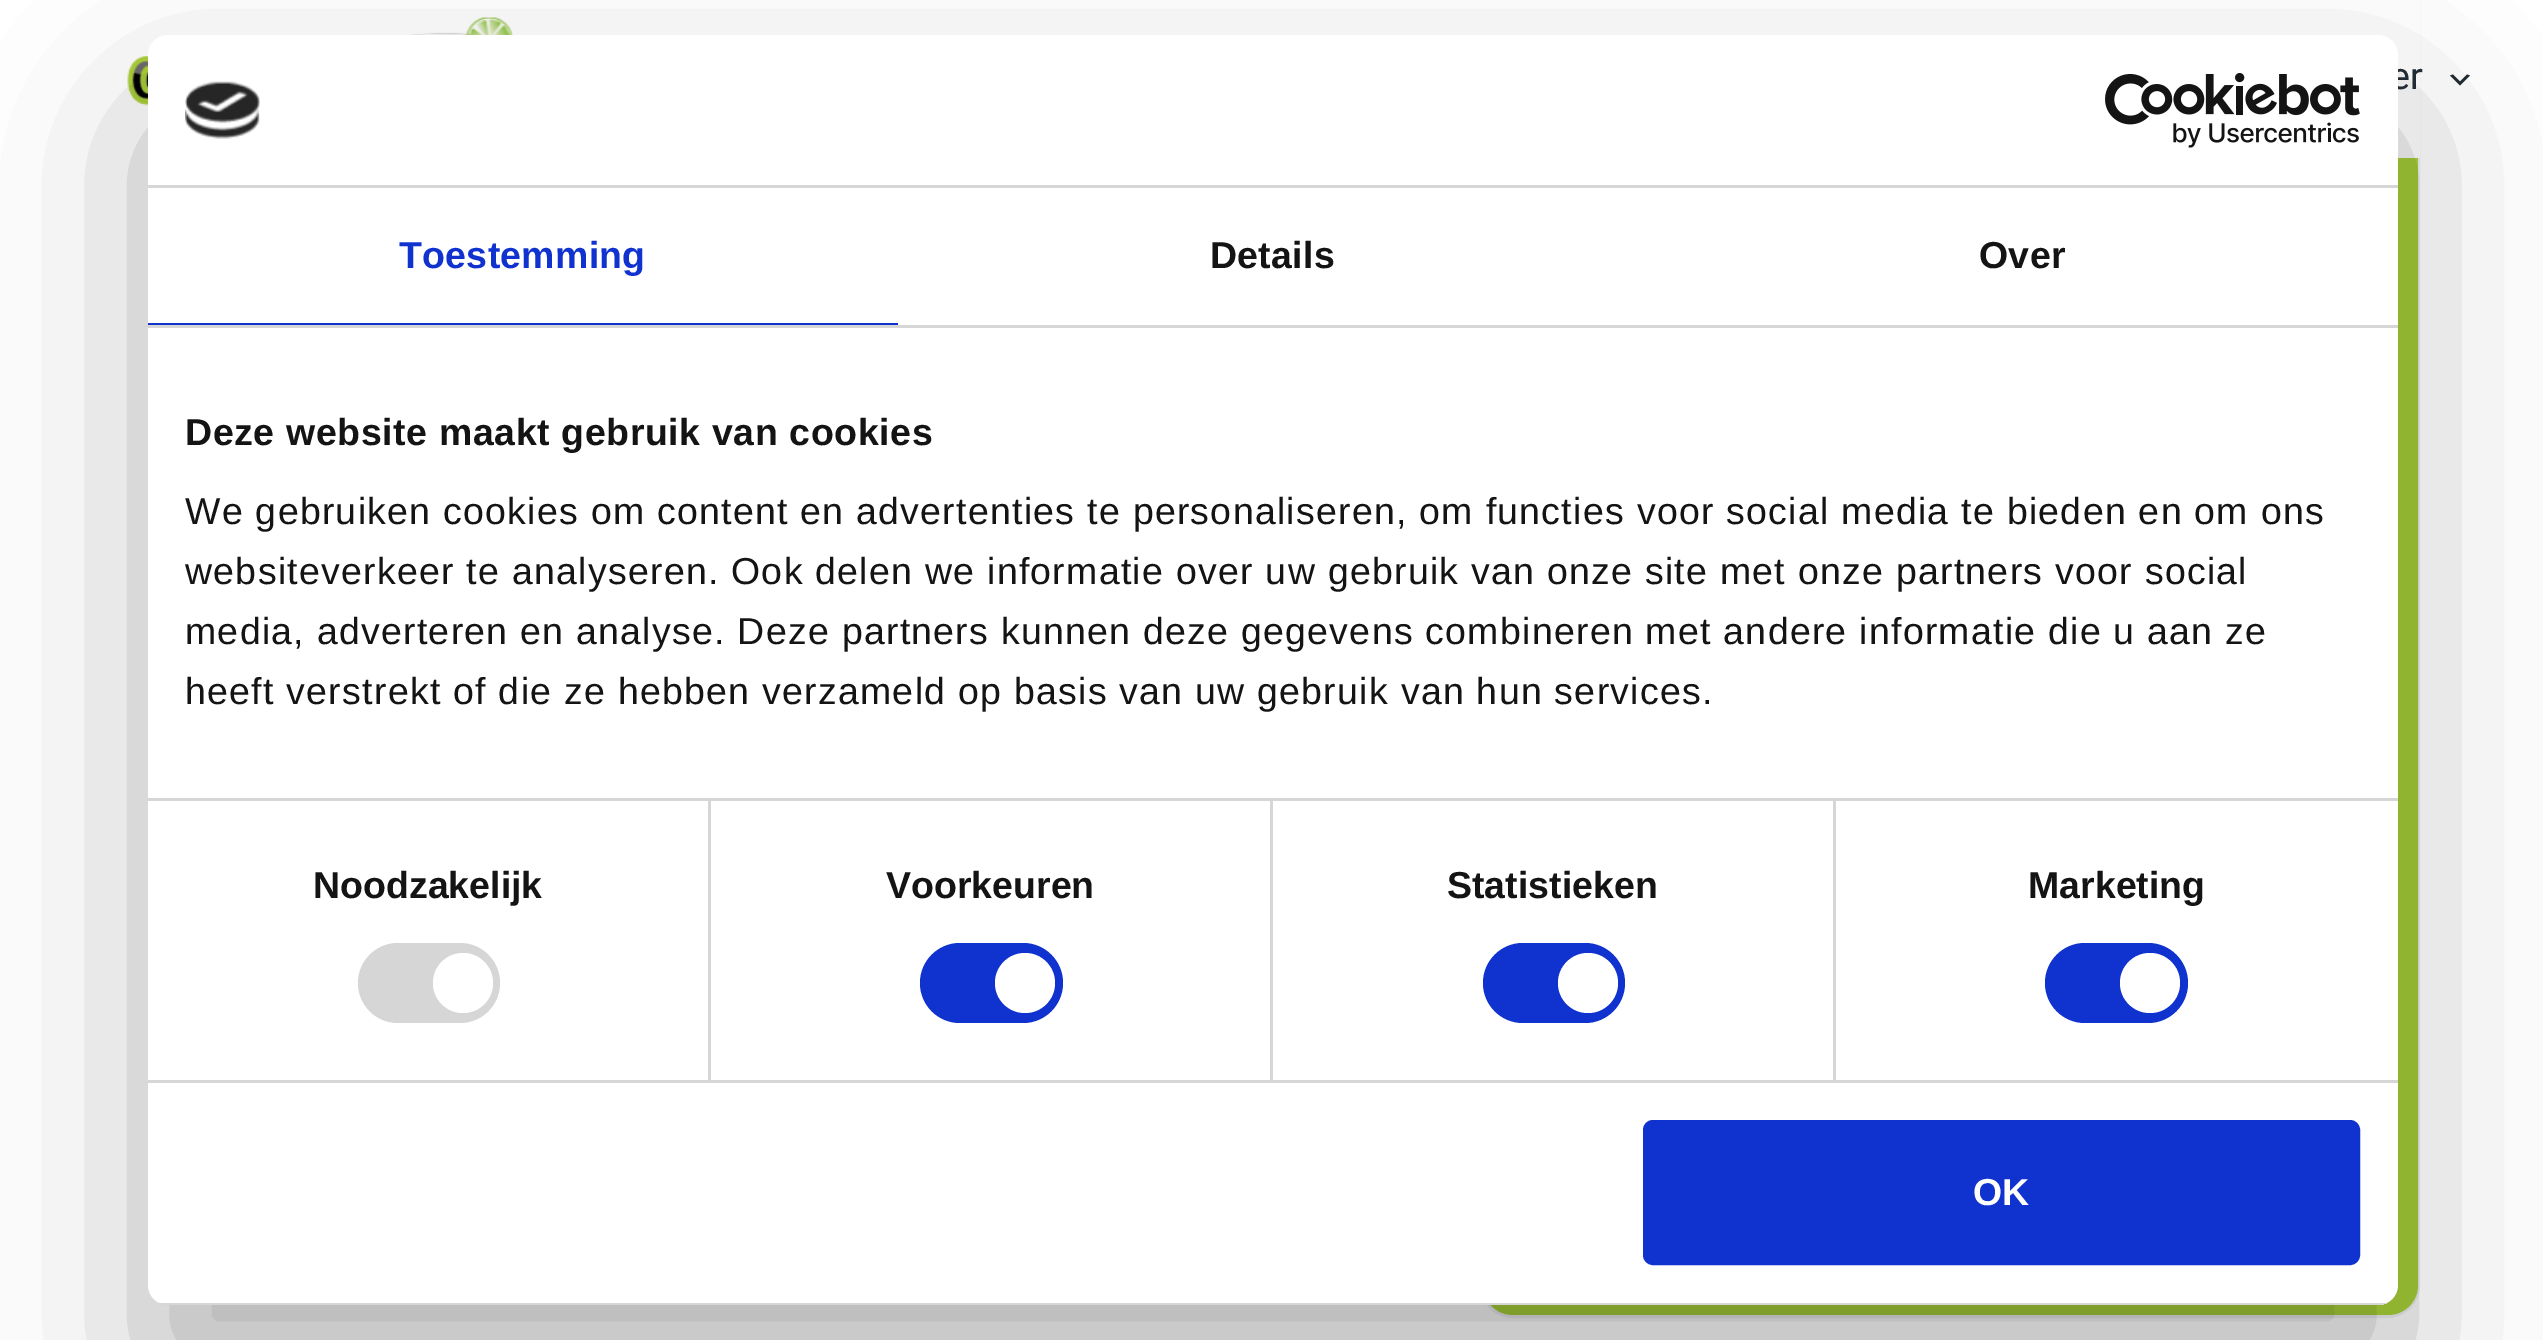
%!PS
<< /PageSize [2543 1340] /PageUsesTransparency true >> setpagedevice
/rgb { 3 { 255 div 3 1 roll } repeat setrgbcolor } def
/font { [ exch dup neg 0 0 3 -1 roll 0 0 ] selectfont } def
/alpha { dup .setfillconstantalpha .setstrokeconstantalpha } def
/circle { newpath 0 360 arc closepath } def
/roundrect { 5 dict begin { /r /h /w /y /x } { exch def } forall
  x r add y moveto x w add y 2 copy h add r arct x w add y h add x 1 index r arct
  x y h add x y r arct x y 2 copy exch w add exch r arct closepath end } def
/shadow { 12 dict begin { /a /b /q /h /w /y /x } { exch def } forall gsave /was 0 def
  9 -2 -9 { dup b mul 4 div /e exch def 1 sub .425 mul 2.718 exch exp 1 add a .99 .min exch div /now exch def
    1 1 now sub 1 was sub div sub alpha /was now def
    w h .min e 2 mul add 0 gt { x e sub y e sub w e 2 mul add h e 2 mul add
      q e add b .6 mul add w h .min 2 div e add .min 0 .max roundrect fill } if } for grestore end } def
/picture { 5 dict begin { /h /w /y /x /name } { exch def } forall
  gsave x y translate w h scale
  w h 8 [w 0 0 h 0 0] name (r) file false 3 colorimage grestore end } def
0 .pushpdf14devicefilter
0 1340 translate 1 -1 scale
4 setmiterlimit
255 255 255 rgb
0 0 2543 1340 rectfill
239 240 243 rgb
3 setlinewidth
1481.5 -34.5 937 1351 31.5 roundrect stroke
169 210 56 rgb
1483 -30 935 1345 30 roundrect fill
255 255 255 rgb
1480 0 940 158 rectfill
(img/1.rgb) 127 17 386 89 picture
32 43 51 rgb
2453 74.5 moveto 2460 81.5 lineto 2467 74.5 lineto 2470 75.5 lineto 2460 85.5 lineto 2450 75.5 lineto closepath fill
0 0 0 rgb
148 115 2250 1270 20 85 0.3 shadow
/Roboto-Regular 37.5 font
32 43 51 rgb
2390 89 moveto (er) show
255 255 255 rgb
148 35 2250 1270 20 roundrect fill
214 214 214 rgb
148 185 2250 3 rectfill
(img/2.rgb) 185 81 75 58 picture
(img/3.rgb) 2105 73 255 75 picture
148 325 2250 3 rectfill
16 50 207 rgb
148 323 750 2 rectfill
/LiberationSans-Bold 37.5 font
399 268 moveto 0.25 0 (Toestemming) ashow
20 20 20 rgb
1210 268 moveto 0.25 0 (Details) ashow
1979 268 moveto 0.25 0 (Over) ashow
185 445 moveto 0.6 0 (Deze website maakt gebruik van cookies) ashow
/LiberationSans-Regular 37.5 font
185 524 moveto 1.25 0 (We gebruiken cookies om content en advertenties te personaliseren, om functies voor social media te bieden en om ons) ashow
185 584 moveto 1.25 0 (websiteverkeer te analyseren. Ook delen we informatie over uw gebruik van onze site met onze partners voor social) ashow
185 644 moveto 1.25 0 (media, adverteren en analyse. Deze partners kunnen deze gegevens combineren met andere informatie die u aan ze) ashow
185 704 moveto 1.25 0 (heeft verstrekt of die ze hebben verzameld op basis van uw gebruik van hun services.) ashow
214 214 214 rgb
148 1080 2250 3 rectfill
708 800 3 280 rectfill
/LiberationSans-Bold 37.5 font
20 20 20 rgb
313 898 moveto (Noodzakelijk) show
214 214 214 rgb
358 943 142 80 40 roundrect fill
255 255 255 rgb
463 983 30 circle fill
214 214 214 rgb
1270 800 3 280 rectfill
20 20 20 rgb
886 898 moveto (Voorkeuren) show
16 50 207 rgb
920 943 143 80 40 roundrect fill
255 255 255 rgb
1025 983 30 circle fill
214 214 214 rgb
1833 800 3 280 rectfill
148 798 2250 3 rectfill
20 20 20 rgb
1447 898 moveto (Statistieken) show
16 50 207 rgb
1483 943 142 80 40 roundrect fill
255 255 255 rgb
1588 983 30 circle fill
20 20 20 rgb
2028 898 moveto (Marketing) show
16 50 207 rgb
2045 943 143 80 40 roundrect fill
255 255 255 rgb
2150 983 30 circle fill
gsave
148 35 2250 1270 20 roundrect clip newpath
214 214 214 rgb
159 1303 2228 2 rectfill
grestore
16 50 207 rgb
1645.5 1122.5 712 140 7.5 roundrect gsave fill grestore
5 setlinewidth
stroke
255 255 255 rgb
1973 1205 moveto (OK) show
.poppdf14devicefilter showpage
